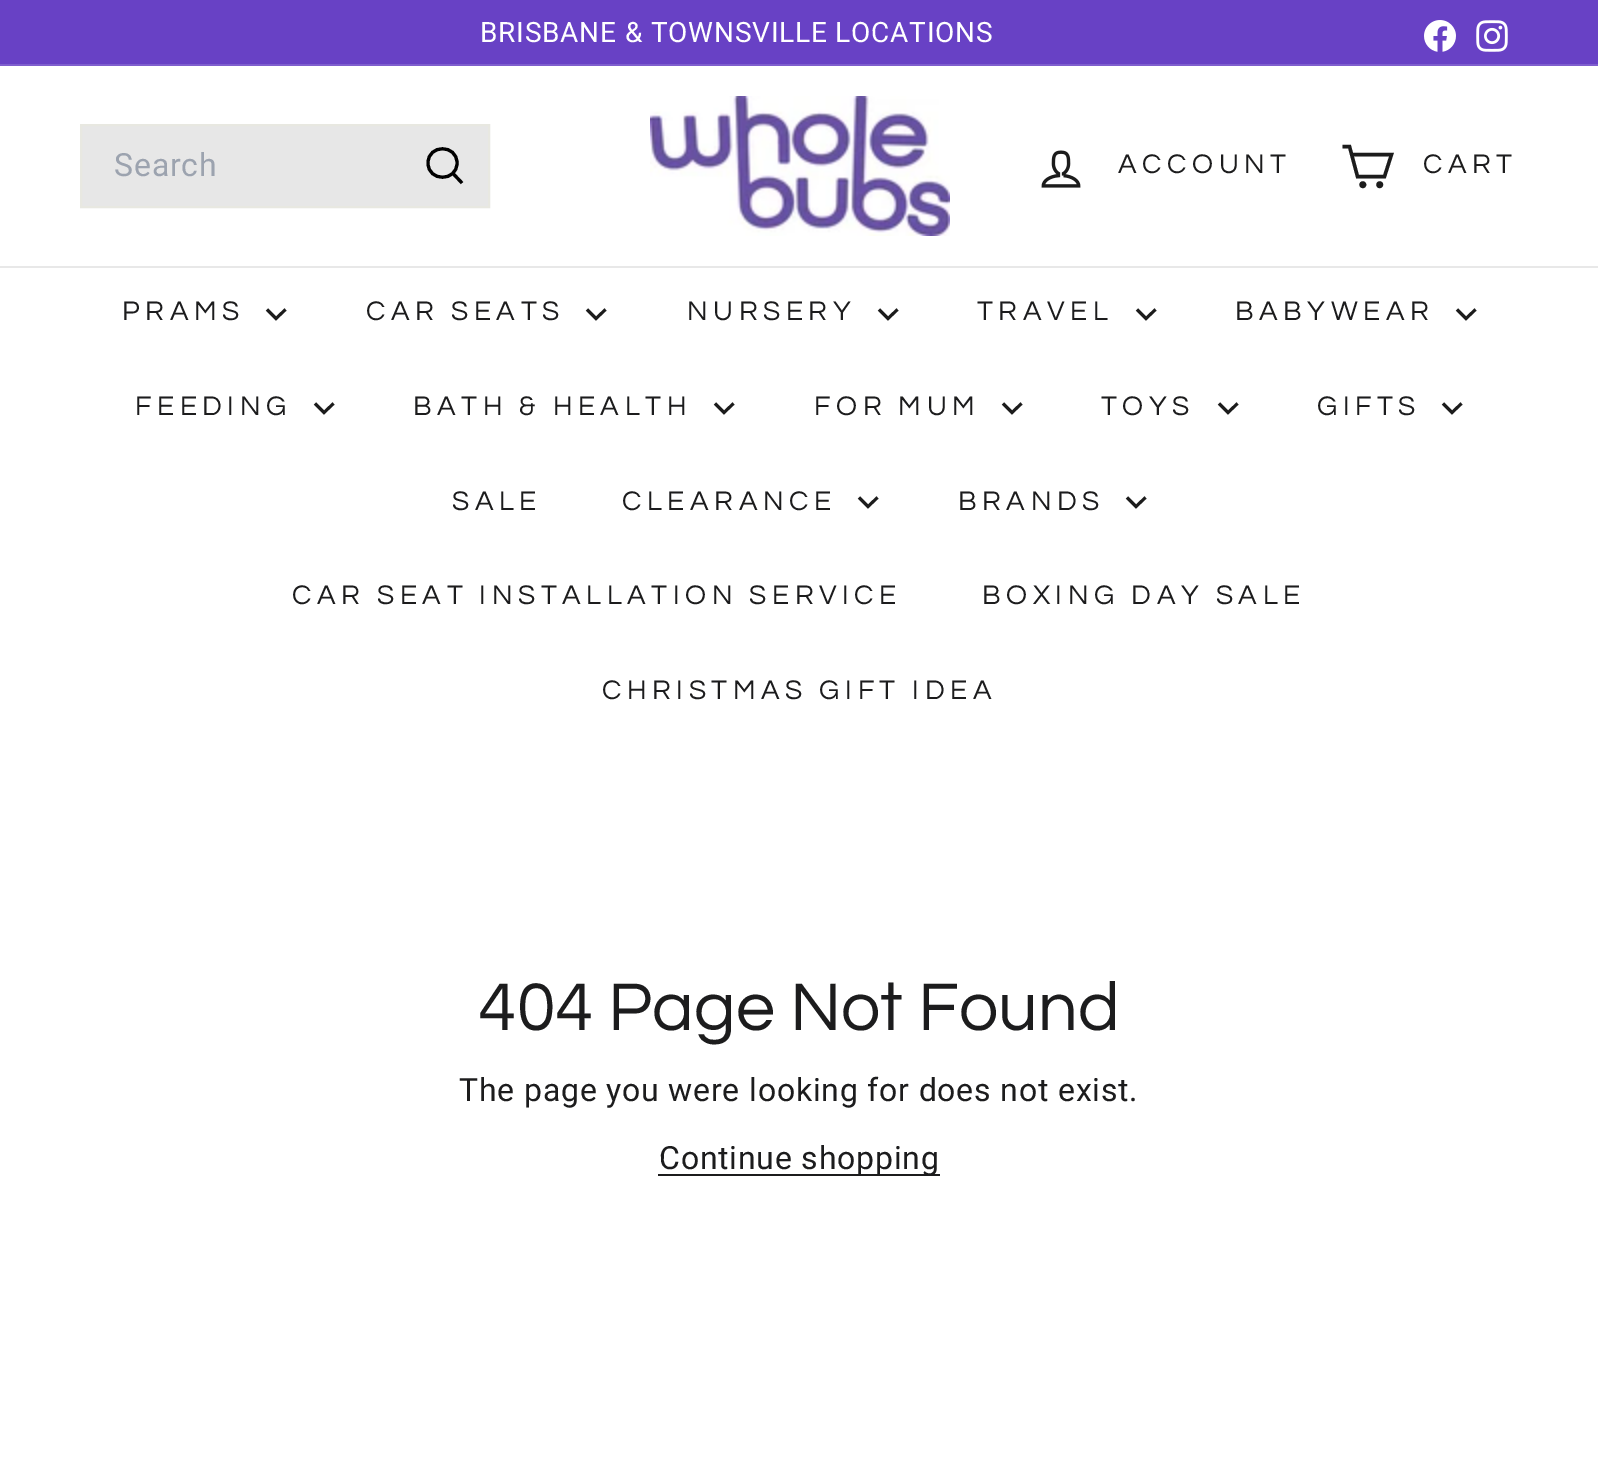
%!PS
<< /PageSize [1598 1468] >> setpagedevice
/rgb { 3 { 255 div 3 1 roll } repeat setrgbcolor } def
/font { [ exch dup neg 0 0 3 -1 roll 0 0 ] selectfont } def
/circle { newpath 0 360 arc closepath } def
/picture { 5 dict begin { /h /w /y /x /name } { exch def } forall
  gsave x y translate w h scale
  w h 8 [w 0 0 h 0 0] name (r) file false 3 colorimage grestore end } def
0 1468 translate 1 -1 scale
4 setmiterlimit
255 255 255 rgb
0 0 1598 1468 rectfill
104 65 197 rgb
0 0 1598 64 rectfill
(img/1.rgb) 1424 20 32 32 picture
(img/2.rgb) 1476 20 32 32 picture
127 94 206 rgb
0 64 1598 2 rectfill
231 231 231 rgb
81 125 moveto 489 125 lineto 489 207 lineto 81 207 lineto closepath gsave fill grestore
232 232 225 rgb
2 setlinewidth
stroke
0 0 0 rgb
3.1 setlinewidth
457 163 moveto 457 182 428 182 428 163 curveto 428 144 457 144 457 163 curveto 462 183 moveto 453 173.5 lineto stroke
(img/3.rgb) 650 96 300 140 picture
(img/4.rgb) 1041 150 40 38 picture
28 28 28 rgb
3.4 setlinewidth
1352 154.5 moveto 1391.5 154.5 lineto 1384.5 176.5 lineto 1357.5 176.5 lineto 1349.5 146.5 lineto 1342.5 146.5 lineto stroke
1362.8 184.7 1.7 circle stroke
1379.7 184.7 1.7 circle stroke
232 232 232 rgb
0 266 1598 2 rectfill
28 28 28 rgb
2.9 setlinewidth
267 309.5 moveto 276 318.5 lineto 285.5 309.5 lineto stroke
587 309.5 moveto 596 318.5 lineto 605.5 309.5 lineto stroke
879 309.5 moveto 888 318.5 lineto 897.5 309.5 lineto stroke
1137 309.5 moveto 1146 318.5 lineto 1155.5 309.5 lineto stroke
1457 309.5 moveto 1466 318.5 lineto 1475.5 309.5 lineto stroke
315 403.5 moveto 324 412.5 lineto 333.5 403.5 lineto stroke
715 403.5 moveto 724 412.5 lineto 733.5 403.5 lineto stroke
1003 403.5 moveto 1012 412.5 lineto 1021.5 403.5 lineto stroke
1219 403.5 moveto 1228 412.5 lineto 1237.5 403.5 lineto stroke
1443 403.5 moveto 1452 412.5 lineto 1461.5 403.5 lineto stroke
859 497.5 moveto 868 506.5 lineto 877.5 497.5 lineto stroke
1127 497.5 moveto 1136 506.5 lineto 1145.5 497.5 lineto stroke
28 28 29 rgb
658 1174 282 2 rectfill
/Roboto-Regular 28 font
255 255 255 rgb
480 42 moveto 0.8 0 (BRISBANE & TOWNSVILLE LOCATIONS) ashow
/Roboto-Regular 32 font
156 163 175 rgb
114 176 moveto 0.8 0 (Search) ashow
/Questrial-Regular 28 font
28 28 29 rgb
1118 173 moveto 5.6 0 (ACCOUNT) ashow
1423 173 moveto 5.6 0 (CART) ashow
122 320 moveto 5.6 0 (PRAMS) ashow
366 320 moveto 5.6 0 (CAR SEATS) ashow
687 320 moveto 5.6 0 (NURSERY) ashow
977 320 moveto 5.6 0 (TRAVEL) ashow
1235 320 moveto 5.6 0 (BABYWEAR) ashow
135 415 moveto 5.6 0 (FEEDING) ashow
413 415 moveto 5.6 0 (BATH & HEALTH) ashow
814 415 moveto 5.6 0 (FOR MUM) ashow
1101 415 moveto 5.6 0 (TOYS) ashow
1317 415 moveto 5.6 0 (GIFTS) ashow
452 510 moveto 5.6 0 (SALE) ashow
622 510 moveto 5.6 0 (CLEARANCE) ashow
958 510 moveto 5.6 0 (BRANDS) ashow
292 604 moveto 5.6 0 (CAR SEAT INSTALLATION SERVICE) ashow
982 604 moveto 5.6 0 (BOXING DAY SALE) ashow
602 699 moveto 5.6 0 (CHRISTMAS GIFT IDEA) ashow
/Questrial-Regular 70 font
478 1030 moveto (404 Page Not Found) show
/Roboto-Regular 32 font
459 1101 moveto 0.8 0 (The page you were looking for does not exist.) ashow
659 1169 moveto 0.8 0 (Continue shopping) ashow
showpage
